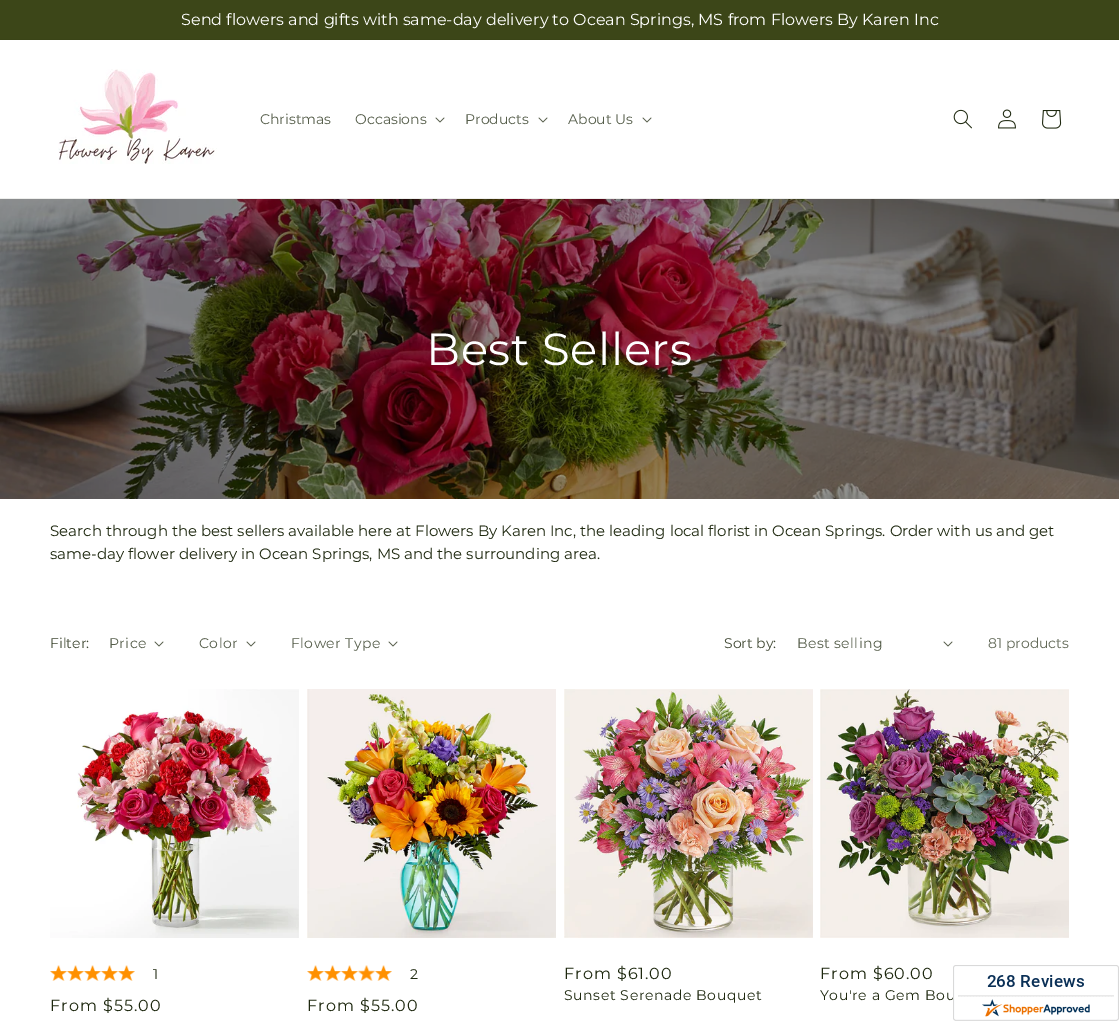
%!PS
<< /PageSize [1119 1022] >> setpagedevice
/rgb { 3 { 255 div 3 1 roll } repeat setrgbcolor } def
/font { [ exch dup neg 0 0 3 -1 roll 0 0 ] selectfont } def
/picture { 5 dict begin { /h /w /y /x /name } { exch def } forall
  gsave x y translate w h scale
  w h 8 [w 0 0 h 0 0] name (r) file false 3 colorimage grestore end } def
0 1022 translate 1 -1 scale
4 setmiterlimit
255 255 255 rgb
0 0 1119 1022 rectfill
[
  [0 0 1119 39 60 70 24]
  [0 39 1119 1 58 68 23]
  [0 198 1119 1 237 238 236]
] { aload pop rgb rectfill } forall
(img/1.rgb) 58 69 159 95 picture
(img/2.rgb) 435 117 10 6 picture
(img/2.rgb) 538 117 10 6 picture
(img/2.rgb) 642 117 10 6 picture
(img/3.rgb) 953 109 19 20 picture
(img/4.rgb) 998 109 18 20 picture
(img/5.rgb) 1042 110 20 19 picture
(img/6.rgb) 0 199 1119 300 picture
(img/2.rgb) 154 641 10 6 picture
(img/2.rgb) 246 641 10 6 picture
(img/2.rgb) 388 641 10 6 picture
(img/2.rgb) 943 641 10 6 picture
(img/7.rgb) 50 689 249 249 picture
(img/8.rgb) 50 965 17 16 picture
(img/8.rgb) 67 965 17 16 picture
(img/8.rgb) 84 965 17 16 picture
(img/8.rgb) 101 965 17 16 picture
(img/8.rgb) 118 965 17 16 picture
(img/9.rgb) 307 689 249 249 picture
(img/8.rgb) 307 965 17 16 picture
(img/8.rgb) 324 965 17 16 picture
(img/8.rgb) 341 965 17 16 picture
(img/10.rgb) 358 965 17 16 picture
(img/8.rgb) 375 965 17 16 picture
(img/11.rgb) 564 689 249 249 picture
(img/12.rgb) 820 689 249 249 picture
/Montserrat-Regular 16 font
255 255 255 rgb
181 25 moveto (Send flowers and gifts with same-day delivery to Ocean Springs, MS from Flowers By Karen Inc) show
/Montserrat-Regular 14 font
86 94 75 rgb
[
  [(Christmas) 260 124]
  [(Occasions) 355 124]
  [(Products) 465 124]
  [(About Us) 568 124]
] { aload pop moveto show } forall
/Montserrat-Regular 45 font
255 255 255 rgb
426 365 moveto 0.6 0 (Best Sellers) ashow
/Montserrat-Regular 15 font
30 40 15 rgb
50 536 moveto (Search through the best sellers available here at Flowers By Karen Inc, the leading local florist in Ocean Springs. Order with us and get) show
50 559 moveto (same-day flower delivery in Ocean Springs, MS and the surrounding area.) show
/Montserrat-Regular 14 font
64 72 51 rgb
50 648 moveto (Filter:) show
86 94 75 rgb
109 648 moveto 0.4 0 (Price) ashow
199 648 moveto 0.4 0 (Color) ashow
291 648 moveto 0.4 0 (Flower Type) ashow
64 72 51 rgb
724 648 moveto (Sort by:) show
86 94 75 rgb
797 648 moveto 0.4 0 (Best selling) ashow
98 105 87 rgb
988 648 moveto (81 products) show
30 40 15 rgb
153 979 moveto (1) show
/Montserrat-Regular 16 font
50 1011 moveto 1 0 (From $55.00) ashow
/Montserrat-Regular 14 font
410 979 moveto (2) show
/Montserrat-Regular 16 font
307 1011 moveto 1 0 (From $55.00) ashow
564 979 moveto 1 0 (From $61.00) ashow
/Montserrat-Regular 14 font
564 1000 moveto 0.6 0 (Sunset Serenade Bouquet) ashow
/Montserrat-Regular 16 font
820 979 moveto 1 0 (From $60.00) ashow
/Montserrat-Regular 14 font
820 1000 moveto 0.6 0 (You're a Gem Bou) ashow
(img/13.rgb) 953 965 166 56 picture
showpage
